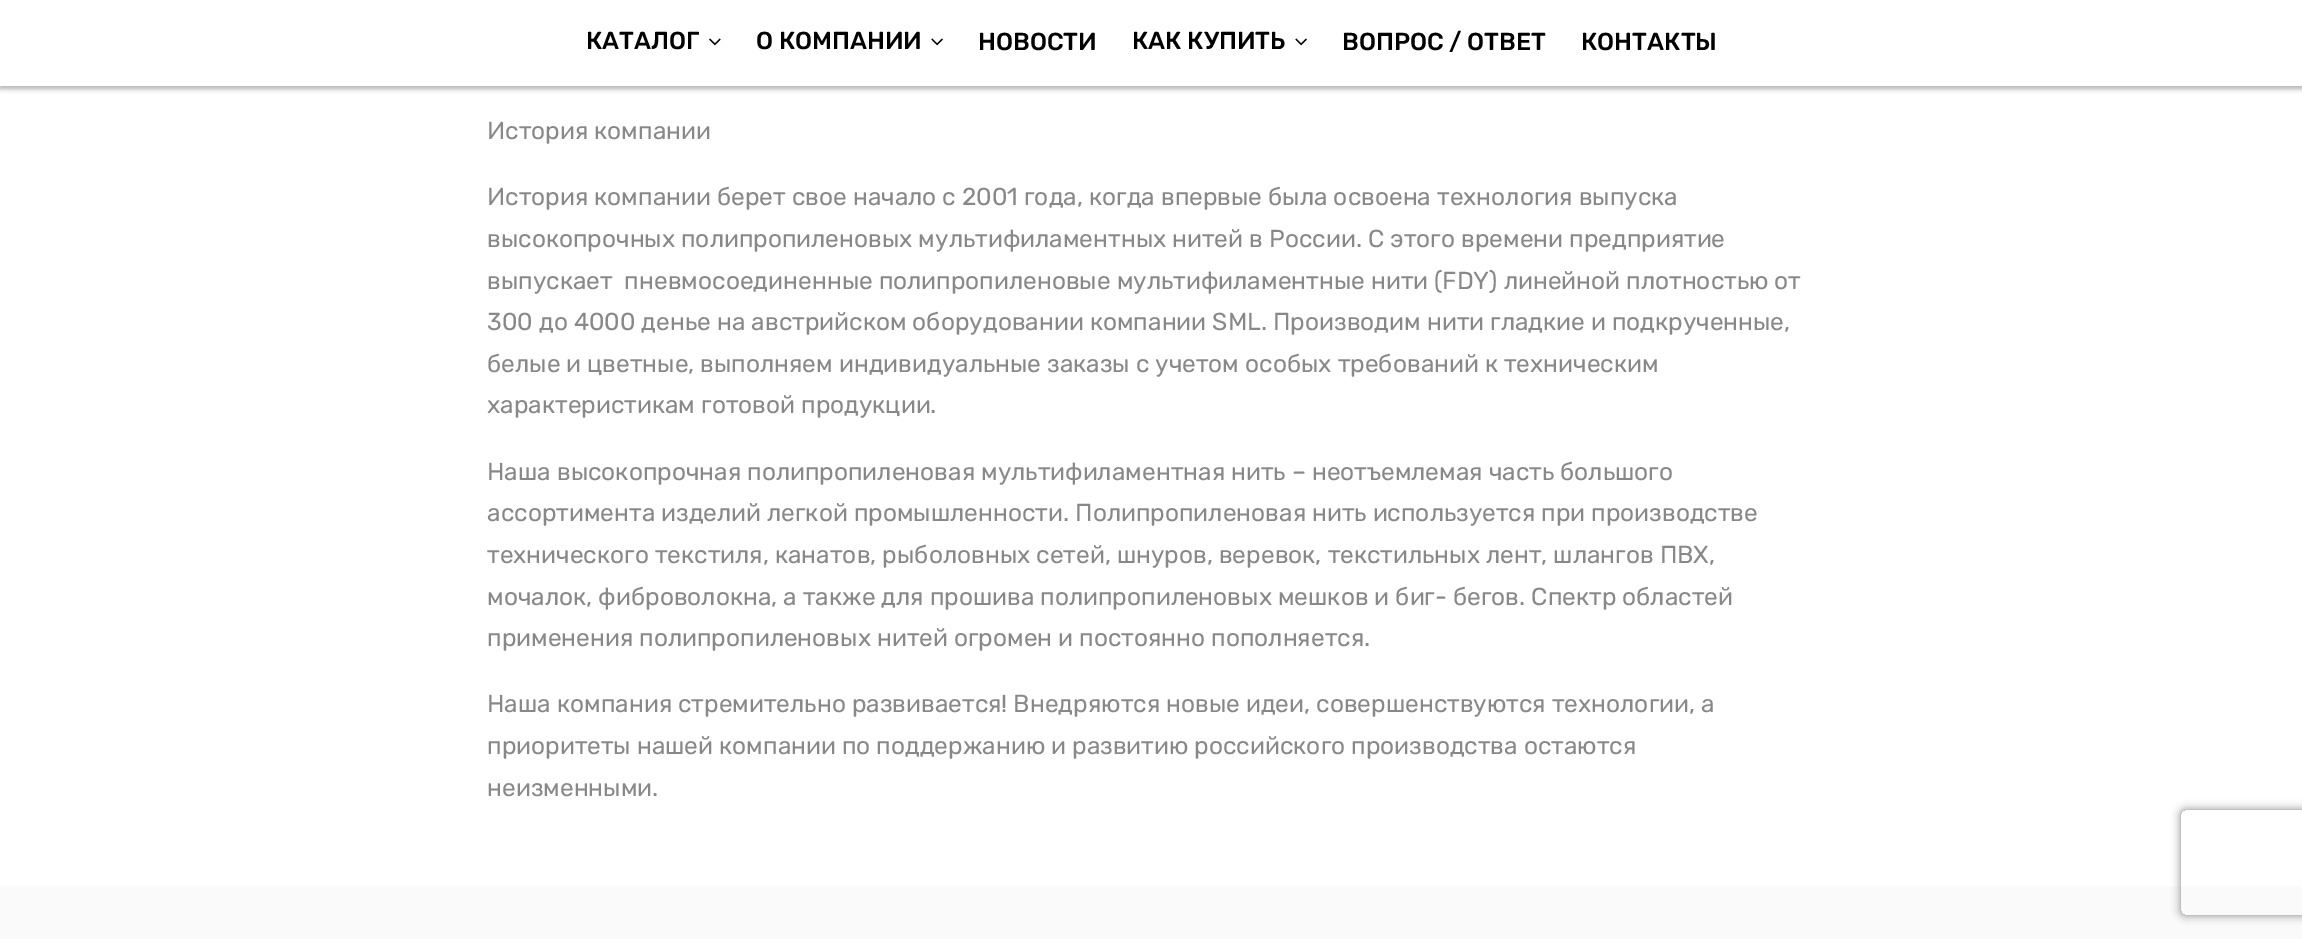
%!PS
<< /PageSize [2302 939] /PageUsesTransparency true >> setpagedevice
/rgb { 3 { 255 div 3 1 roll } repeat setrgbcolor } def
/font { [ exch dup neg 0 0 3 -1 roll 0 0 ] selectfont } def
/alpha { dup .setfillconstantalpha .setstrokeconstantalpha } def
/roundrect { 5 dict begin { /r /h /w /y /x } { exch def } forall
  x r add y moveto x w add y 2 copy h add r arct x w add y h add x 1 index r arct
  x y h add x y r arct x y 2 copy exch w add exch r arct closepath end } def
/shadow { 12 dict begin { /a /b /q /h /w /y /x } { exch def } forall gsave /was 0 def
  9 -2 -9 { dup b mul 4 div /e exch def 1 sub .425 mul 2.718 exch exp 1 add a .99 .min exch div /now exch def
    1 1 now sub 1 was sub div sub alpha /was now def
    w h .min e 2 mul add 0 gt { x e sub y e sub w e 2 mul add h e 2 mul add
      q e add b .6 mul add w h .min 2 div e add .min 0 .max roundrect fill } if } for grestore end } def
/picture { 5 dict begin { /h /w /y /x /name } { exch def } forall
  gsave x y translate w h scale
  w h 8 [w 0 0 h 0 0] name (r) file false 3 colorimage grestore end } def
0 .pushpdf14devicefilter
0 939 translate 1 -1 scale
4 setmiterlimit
255 255 255 rgb
0 0 2302 939 rectfill
0 0 0 rgb
0 4 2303 85 0 2.5 0.3 shadow
255 255 255 rgb
0 0 2302 86 rectfill
(img/1.rgb) 709 38 12 8 picture
(img/2.rgb) 931 38 12 8 picture
(img/2.rgb) 1295 38 12 8 picture
250 250 250 rgb
0 886 2302 53 rectfill
gsave
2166 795 moveto 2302 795 lineto 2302 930 lineto 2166 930 lineto closepath 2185 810 moveto 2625 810 lineto 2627 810 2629 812 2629 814 curveto 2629 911 lineto 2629 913 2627 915 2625 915 curveto 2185 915 lineto 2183 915 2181 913 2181 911 curveto 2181 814 lineto 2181 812 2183 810 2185 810 curveto closepath eoclip newpath
128 128 128 rgb
2181 810 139 105 4 4.5 1 shadow
grestore
/Rubik-Medium 24.5 font
0 0 0 rgb
[
  [(КАТАЛОГ) 586 49]
  [(О КОМПАНИИ) 756 49]
  [(НОВОСТИ) 978 50]
  [(КАК КУПИТЬ) 1132 49]
  [(ВОПРОС / ОТВЕТ) 1342 50]
  [(КОНТАКТЫ) 1581 50]
] { aload pop moveto show } forall
/Rubik-Regular 24.5 font
136 136 136 rgb
[
  [(История компании) 487 139]
  [(История компании берет свое начало с 2001 года, когда впервые была освоена технология выпуска) 487 205]
  [(высокопрочных полипропиленовых мультифиламентных нитей в России. С этого времени предприятие) 487 247]
  [(выпускает  пневмосоединенные полипропиленовые мультифиламентные нити \(FDY\) линейной плотностью от) 487 289]
  [(300 до 4000 денье на австрийском оборудовании компании SML. Производим нити гладкие и подкрученные,) 487 330]
  [(белые и цветные, выполняем индивидуальные заказы с учетом особых требований к техническим) 487 372]
  [(характеристикам готовой продукции.) 487 413]
  [(Наша высокопрочная полипропиленовая мультифиламентная нить – неотъемлемая часть большого) 487 480]
  [(ассортимента изделий легкой промышленности. Полипропиленовая нить используется при производстве) 487 521]
  [(технического текстиля, канатов, рыболовных сетей, шнуров, веревок, текстильных лент, шлангов ПВХ,) 487 563]
  [(мочалок, фиброволокна, а также для прошива полипропиленовых мешков и биг- бегов. Спектр областей) 487 605]
  [(применения полипропиленовых нитей огромен и постоянно пополняется.) 487 646]
  [(Наша компания стремительно развивается! Внедряются новые идеи, совершенствуются технологии, а) 487 712]
  [(приоритеты нашей компании по поддержанию и развитию российского производства остаются) 487 754]
  [(неизменными.) 487 796]
] { aload pop moveto show } forall
.poppdf14devicefilter showpage
